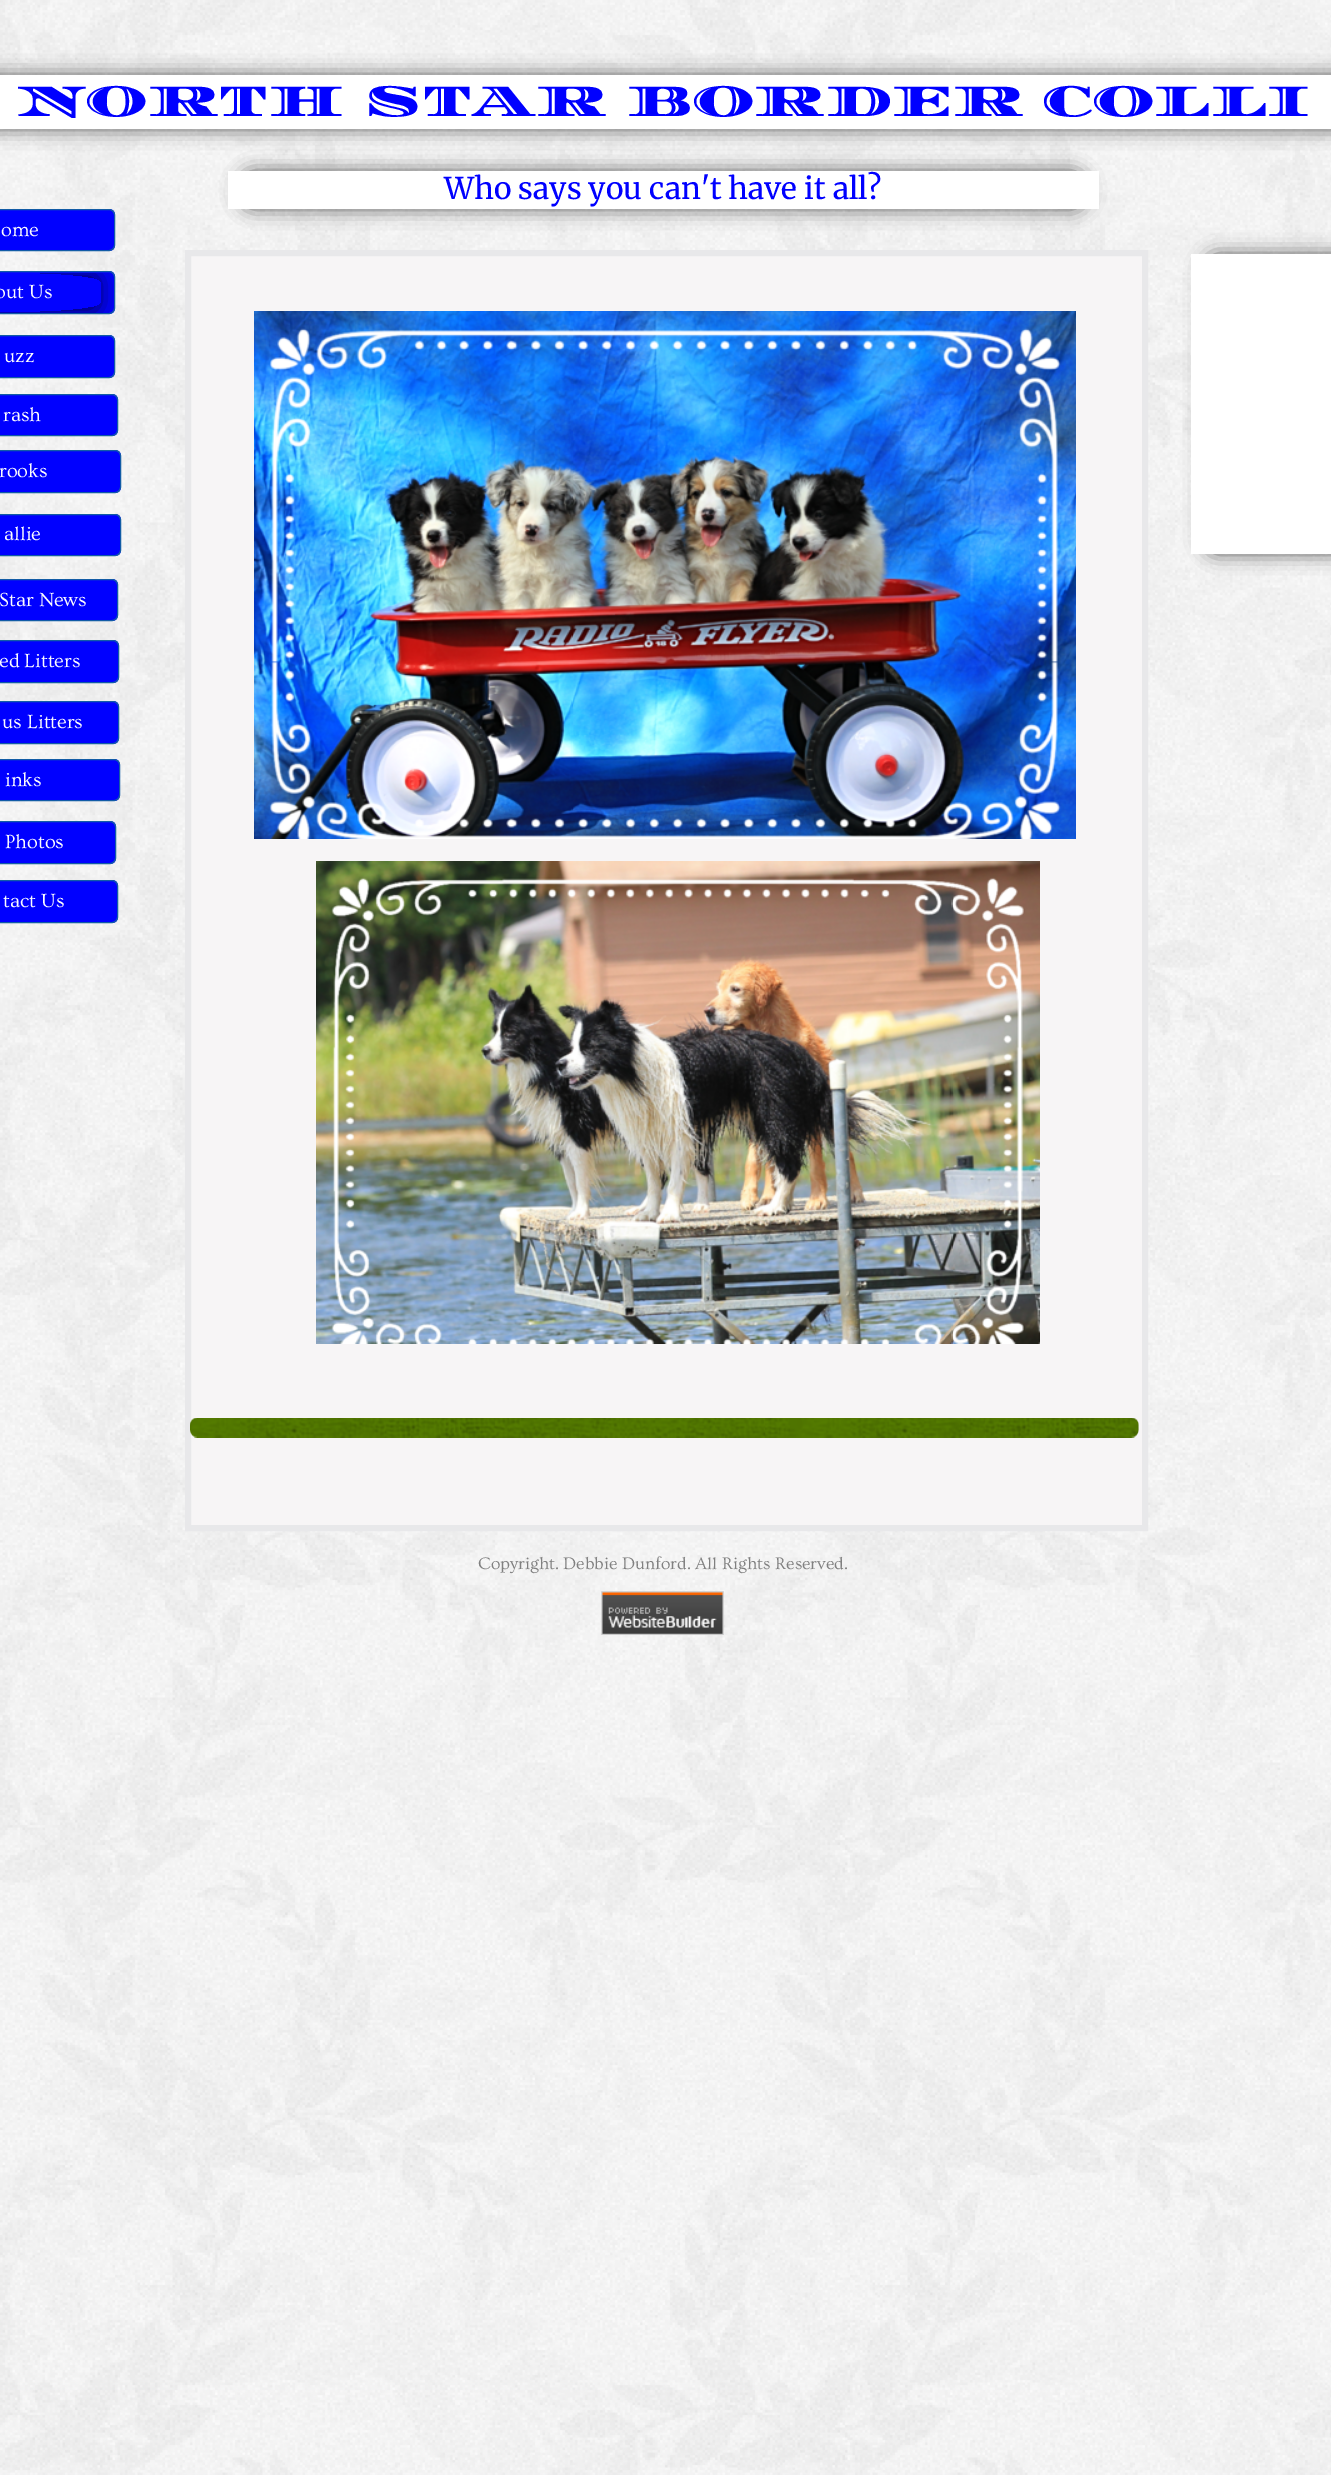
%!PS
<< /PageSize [1331 2475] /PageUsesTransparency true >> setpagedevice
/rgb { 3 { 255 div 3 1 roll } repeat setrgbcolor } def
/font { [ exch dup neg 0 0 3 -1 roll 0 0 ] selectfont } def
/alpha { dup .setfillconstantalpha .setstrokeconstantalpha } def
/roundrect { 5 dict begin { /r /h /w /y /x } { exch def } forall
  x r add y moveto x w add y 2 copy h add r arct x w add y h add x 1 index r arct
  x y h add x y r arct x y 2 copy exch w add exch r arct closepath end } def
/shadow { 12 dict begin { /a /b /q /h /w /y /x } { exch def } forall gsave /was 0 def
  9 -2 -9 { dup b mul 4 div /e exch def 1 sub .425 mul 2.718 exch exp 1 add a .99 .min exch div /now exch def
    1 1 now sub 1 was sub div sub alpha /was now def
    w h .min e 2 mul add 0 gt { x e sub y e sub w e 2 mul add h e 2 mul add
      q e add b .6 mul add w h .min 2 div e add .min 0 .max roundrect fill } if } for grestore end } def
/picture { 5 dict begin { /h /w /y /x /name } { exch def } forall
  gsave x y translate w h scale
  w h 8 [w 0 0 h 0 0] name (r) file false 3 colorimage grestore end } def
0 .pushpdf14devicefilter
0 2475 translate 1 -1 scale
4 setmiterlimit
255 255 255 rgb
0 0 1331 2475 rectfill
(img/1.rgb) 0 0 1331 2475 picture
247 245 246 rgb
188 253 moveto 1145 253 lineto 1145 1528 lineto 188 1528 lineto closepath gsave fill grestore
232 232 234 rgb
6 setlinewidth
stroke
0 0 0 rgb
-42 75 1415 54 13 9.5 0.6 shadow
255 255 255 rgb
0 75 1331 54 rectfill
0 0 0 rgb
240 171 846 38 13 9.5 0.6 shadow
255 255 255 rgb
228 171 871 38 rectfill
0.99 alpha
0 0 255 rgb
0 271 moveto 109 271 lineto 112.5 271 115 273.5 115 277 curveto 115 308 lineto 115 311.5 112.5 314 109 314 curveto 0 314 lineto closepath fill
18 92 166 rgb
1 setlinewidth
-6.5 271.5 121 42 5.5 roundrect stroke
gsave
-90 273 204 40 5 roundrect clip newpath
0 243 moveto 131 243 lineto 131 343 lineto 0 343 lineto closepath 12 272.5 moveto 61 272.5 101 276.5 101 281.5 curveto 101 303.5 lineto 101 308.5 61 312.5 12 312.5 curveto -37.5 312.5 -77.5 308.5 -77.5 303.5 curveto -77.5 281.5 lineto -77.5 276.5 -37.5 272.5 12 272.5 curveto closepath eoclip newpath
1 alpha
0 0 0 rgb
-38 273 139 40 9 9.5 0.59 shadow
grestore
1 alpha
0 0 255 rgb
0 209 moveto 109 209 lineto 112.5 209 115 211.5 115 215 curveto 115 245 lineto 115 248.5 112.5 251 109 251 curveto 0 251 lineto closepath fill
18 92 166 rgb
-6.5 209.5 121 41 5.5 roundrect stroke
0 0 0 rgb
1204 254 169 300 13 9.5 0.6 shadow
255 255 255 rgb
1191 254 140 300 rectfill
0 0 255 rgb
0 335 moveto 109 335 lineto 112.5 335 115 337.5 115 341 curveto 115 372 lineto 115 375.5 112.5 378 109 378 curveto 0 378 lineto closepath fill
18 92 166 rgb
-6.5 335.5 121 42 5.5 roundrect stroke
(img/2.rgb) 254 311 822 528 picture
0 0 255 rgb
0 394 moveto 112 394 lineto 115.5 394 118 396.5 118 400 curveto 118 430 lineto 118 433.5 115.5 436 112 436 curveto 0 436 lineto closepath fill
18 92 166 rgb
-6.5 394.5 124 41 5.5 roundrect stroke
0 0 255 rgb
0 450 moveto 115 450 lineto 118.5 450 121 452.5 121 456 curveto 121 487 lineto 121 490.5 118.5 493 115 493 curveto 0 493 lineto closepath fill
18 92 166 rgb
-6.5 450.5 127 42 5.5 roundrect stroke
0 0 255 rgb
0 514 moveto 115 514 lineto 118.5 514 121 516.5 121 520 curveto 121 550 lineto 121 553.5 118.5 556 115 556 curveto 0 556 lineto closepath fill
18 92 166 rgb
-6.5 514.5 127 41 5.5 roundrect stroke
0 0 255 rgb
0 579 moveto 112 579 lineto 115.5 579 118 581.5 118 585 curveto 118 615 lineto 118 618.5 115.5 621 112 621 curveto 0 621 lineto closepath fill
18 92 166 rgb
-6.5 579.5 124 41 5.5 roundrect stroke
0 0 255 rgb
0 640 moveto 113 640 lineto 116.5 640 119 642.5 119 646 curveto 119 677 lineto 119 680.5 116.5 683 113 683 curveto 0 683 lineto closepath fill
18 92 166 rgb
-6.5 640.5 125 42 5.5 roundrect stroke
0 0 255 rgb
0 701 moveto 113 701 lineto 116.5 701 119 703.5 119 707 curveto 119 738 lineto 119 741.5 116.5 744 113 744 curveto 0 744 lineto closepath fill
18 92 166 rgb
-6.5 701.5 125 42 5.5 roundrect stroke
0 0 255 rgb
0 759 moveto 114 759 lineto 117.5 759 120 761.5 120 765 curveto 120 795 lineto 120 798.5 117.5 801 114 801 curveto 0 801 lineto closepath fill
18 92 166 rgb
-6.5 759.5 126 41 5.5 roundrect stroke
0 0 255 rgb
0 821 moveto 110 821 lineto 113.5 821 116 823.5 116 827 curveto 116 858 lineto 116 861.5 113.5 864 110 864 curveto 0 864 lineto closepath fill
18 92 166 rgb
-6.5 821.5 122 42 5.5 roundrect stroke
0 0 255 rgb
0 880 moveto 112 880 lineto 115.5 880 118 882.5 118 886 curveto 118 917 lineto 118 920.5 115.5 923 112 923 curveto 0 923 lineto closepath fill
18 92 166 rgb
-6.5 880.5 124 42 5.5 roundrect stroke
(img/3.rgb) 316 861 724 483 picture
(img/4.rgb) 190 1418 949 20 picture
(img/5.rgb) 601 1591 123 44 picture
/Diplomata-Regular 45 font
0 0 255 rgb
17 116 moveto (NORTH STAR BORDER COLLI) show
/Merriweather-Light 30 font
444 199 moveto (Who says you can't have it all?) show
/Ovo-Regular 20 font
252 252 255 rgb
[
  [(ome) 1 236]
  [(out Us) -5 298]
  [(uzz) 4 362]
  [(rash) 3 421]
  [(rooks) -1 477]
  [(allie) 4 540]
  [(Star News) -1 606]
  [(ed Litters) -1 667]
  [(us Litters) 2 728]
  [(inks) 5 786]
  [(Photos) 5 848]
  [(tact Us) 3 907]
] { aload pop moveto show } forall
/Ovo-Regular 17.5 font
128 128 128 rgb
478 1569 moveto (Copyright.) show
563 1569 moveto (Debbie Dunford. All Rights Reserved.) show
.poppdf14devicefilter showpage
